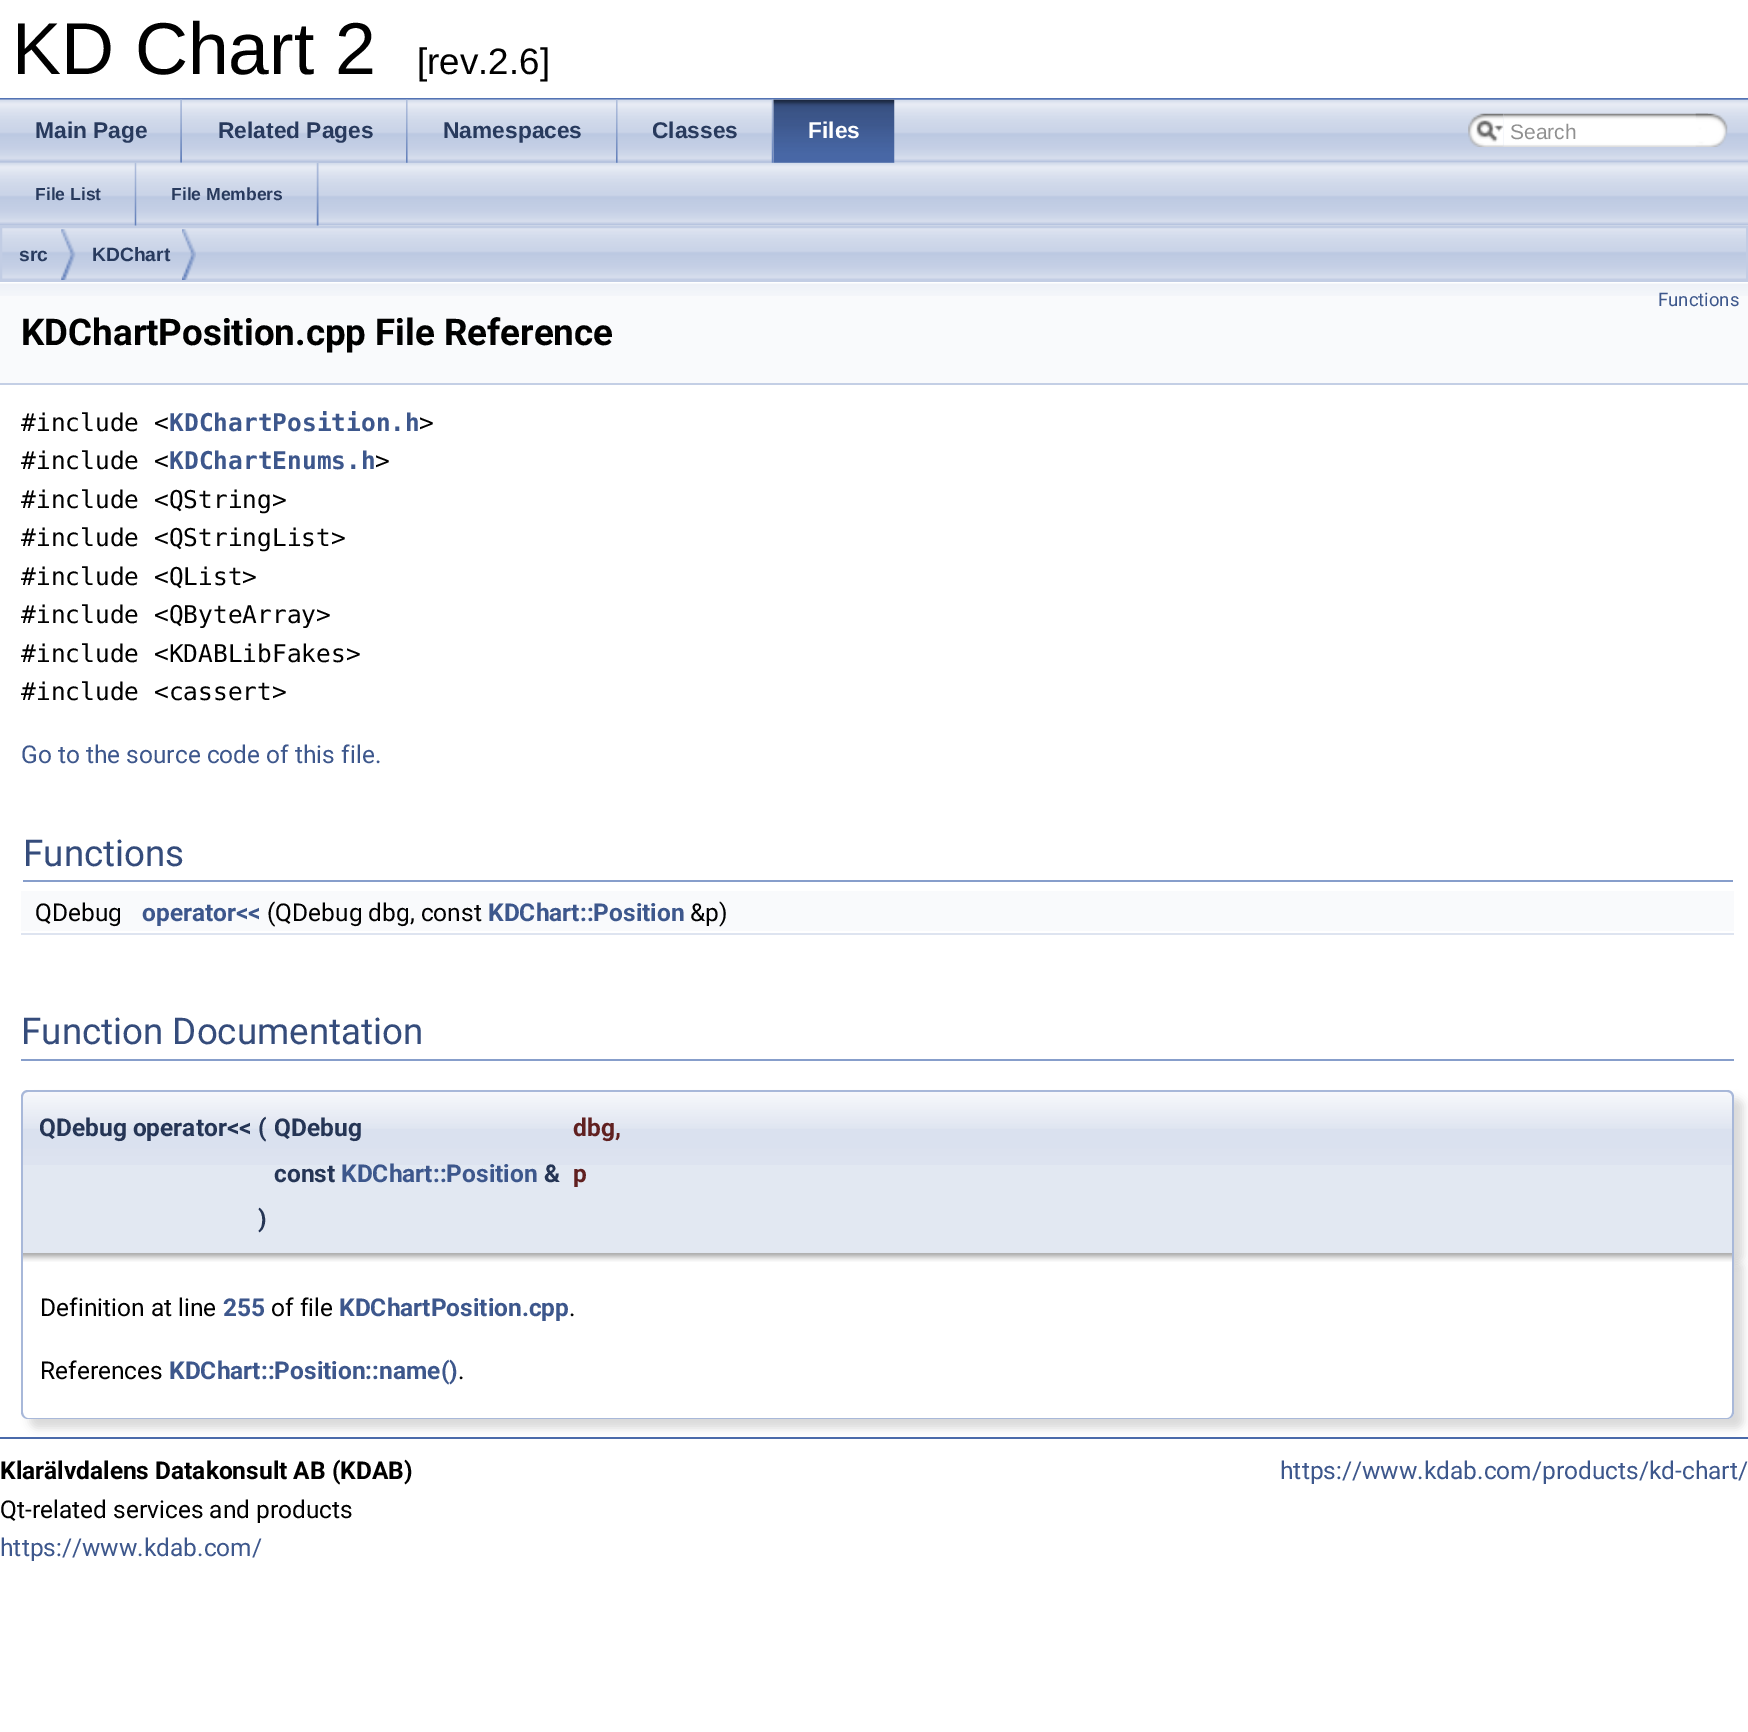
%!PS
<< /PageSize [1748 1732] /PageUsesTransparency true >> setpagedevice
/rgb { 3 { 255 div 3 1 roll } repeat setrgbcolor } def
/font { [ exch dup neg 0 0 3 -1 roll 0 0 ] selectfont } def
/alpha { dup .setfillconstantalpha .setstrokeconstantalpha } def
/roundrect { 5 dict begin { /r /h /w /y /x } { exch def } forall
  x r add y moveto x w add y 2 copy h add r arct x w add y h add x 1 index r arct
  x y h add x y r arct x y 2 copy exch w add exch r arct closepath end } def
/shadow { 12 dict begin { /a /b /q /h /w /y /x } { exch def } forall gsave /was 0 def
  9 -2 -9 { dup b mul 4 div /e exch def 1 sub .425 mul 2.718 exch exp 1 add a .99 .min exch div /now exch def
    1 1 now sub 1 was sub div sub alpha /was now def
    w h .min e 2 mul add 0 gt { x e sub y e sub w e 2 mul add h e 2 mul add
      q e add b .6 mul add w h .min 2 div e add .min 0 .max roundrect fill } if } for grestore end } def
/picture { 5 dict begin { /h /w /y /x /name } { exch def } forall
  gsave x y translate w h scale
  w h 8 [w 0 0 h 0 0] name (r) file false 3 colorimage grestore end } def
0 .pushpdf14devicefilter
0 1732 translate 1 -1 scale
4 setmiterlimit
255 255 255 rgb
0 0 1748 1732 rectfill
83 115 180 rgb
0 98 1748 2 rectfill
(img/1.rgb) 0 99 1748 64 picture
(img/15.rgb) 0 162 1748 64 picture
(img/2.rgb) 0 99 182 64 picture
(img/3.rgb) 180 99 2 64 picture
(img/4.rgb) 182 99 226 64 picture
(img/5.rgb) 406 99 2 64 picture
(img/6.rgb) 407 99 211 64 picture
(img/5.rgb) 616 99 2 64 picture
(img/7.rgb) 617 99 157 64 picture
(img/8.rgb) 771 99 3 64 picture
(img/9.rgb) 773 99 122 64 picture
(img/10.rgb) 773 99 122 64 picture
(img/11.rgb) 1468 113 36 34 picture
(img/12.rgb) 1476 120 28 22 picture
(img/13.rgb) 1503 113 205 34 picture
(img/14.rgb) 1695 113 33 34 picture
(img/16.rgb) 0 162 137 64 picture
(img/17.rgb) 134 162 3 64 picture
(img/18.rgb) 136 162 183 64 picture
(img/17.rgb) 316 162 3 64 picture
(img/19.rgb) 0 225 1748 55 picture
194 205 228 rgb
2 setlinewidth
1 227 1746 54 rectstroke
(img/20.rgb) 61 229 15 51 picture
(img/21.rgb) 182 229 14 51 picture
249 250 252 rgb
0 296 1748 87 rectfill
(img/22.rgb) 0 282 1748 14 picture
[
  [0 383 1748 2 196 207 229]
  [23 880 1710 2 135 158 203]
  [21 891 1713 40 249 250 252]
  [21 933 1713 2 222 228 240]
  [21 1059 1713 2 135 158 203]
] { aload pop rgb rectfill } forall
0 0 0 rgb
30 1099 1713 163 7 4.5 0.15 shadow
226 232 242 rgb
28 1090 moveto 1727 1090 lineto 1731 1090 1734 1093 1734 1097 curveto 1734 1253 lineto 21 1253 lineto 21 1097 lineto 21 1093 24 1090 28 1090 curveto closepath fill
(img/23.rgb) 21 1092 1713 73 picture
168 184 217 rgb
28 1090 moveto 1727 1090 lineto 1731 1090 1734 1093 1734 1097 curveto 1734 1253 lineto 21 1253 lineto 21 1097 lineto 21 1093 24 1090 28 1090 curveto closepath 28 1092 moveto 1727 1092 lineto 1730 1092 1732 1094 1732 1097 curveto 1732 1253 lineto 23 1253 lineto 23 1097 lineto 23 1094 25 1092 28 1092 curveto closepath eofill
0 0 0 rgb
30 1262 1713 166 7 4.5 0.15 shadow
255 255 255 rgb
21 1253 moveto 1734 1253 lineto 1734 1412 lineto 1734 1416 1731 1419 1727 1419 curveto 28 1419 lineto 24 1419 21 1416 21 1412 curveto closepath fill
(img/24.rgb) 23 1253 1709 9 picture
168 184 217 rgb
21 1253 moveto 1734 1253 lineto 1734 1412 lineto 1734 1416 1731 1419 1727 1419 curveto 28 1419 lineto 24 1419 21 1416 21 1412 curveto closepath 23 1253 moveto 1732 1253 lineto 1732 1412 lineto 1732 1415 1730 1418 1727 1418 curveto 28 1418 lineto 25 1418 23 1415 23 1412 curveto closepath eofill
74 106 170 rgb
0 1437 1748 2 rectfill
/LiberationSans-Regular 73.5 font
0 0 0 rgb
12 74 moveto (KD Chart 2) show
/LiberationSans-Regular 36.75 font
417 74 moveto ([rev.2.6]) show
/LiberationSans-Bold 22.75 font
40 58 93 rgb
[
  [(Main Page) 35 138]
  [(Related Pages) 218 138]
  [(Namespaces) 443 138]
  [(Classes) 652 138]
] { aload pop moveto show } forall
255 255 255 rgb
808 138 moveto (Files) show
/LiberationSans-Regular 21 font
144 144 144 rgb
1510 139 moveto (Search) show
/LiberationSans-Bold 17.5 font
40 58 93 rgb
35 200 moveto (File List) show
171 200 moveto (File Members) show
/LiberationSans-Bold 19.25 font
19 261 moveto (src) show
92 261 moveto (KDChart) show
/Roboto-Regular 18.5 font
61 87 140 rgb
1658 306 moveto (Functions) show
/Roboto-Bold 36.75 font
0 0 0 rgb
21 345 moveto (KDChartPosition.cpp File Reference) show
/DejaVuSansMono-Regular 24.5 font
21 431 moveto (#include <) show
/DejaVuSansMono-Bold 24.5 font
61 87 140 rgb
169 431 moveto (KDChartPosition.h) show
/DejaVuSansMono-Regular 24.5 font
0 0 0 rgb
419 431 moveto (>) show
21 469 moveto (#include <) show
/DejaVuSansMono-Bold 24.5 font
61 87 140 rgb
169 469 moveto (KDChartEnums.h) show
/DejaVuSansMono-Regular 24.5 font
0 0 0 rgb
[
  [(>) 375 469]
  [(#include <QString>) 21 508]
  [(#include <QStringList>) 21 546]
  [(#include <QList>) 21 585]
  [(#include <QByteArray>) 21 623]
  [(#include <KDABLibFakes>) 21 662]
  [(#include <cassert>) 21 700]
] { aload pop moveto show } forall
/Roboto-Regular 24.5 font
61 87 140 rgb
21 763 moveto (Go to the source code of this file.) show
/Roboto-Regular 36.75 font
53 76 123 rgb
23 866 moveto (Functions) show
/Roboto-Regular 24.5 font
0 0 0 rgb
35 921 moveto (QDebug) show
/Roboto-Bold 24.5 font
61 87 140 rgb
142 921 moveto (operator<<) show
/Roboto-Regular 24.5 font
0 0 0 rgb
267 921 moveto (\(QDebug dbg, const) show
/Roboto-Bold 24.5 font
61 87 140 rgb
488 921 moveto (KDChart::Position) show
/Roboto-Regular 24.5 font
0 0 0 rgb
690 921 moveto (&p\)) show
/Roboto-Regular 36.75 font
53 76 123 rgb
21 1044 moveto (Function Documentation) show
/Roboto-Bold 24.5 font
37 53 85 rgb
[
  [(QDebug operator<<) 39 1136]
  [(\() 258 1136]
  [(QDebug) 274 1136]
] { aload pop moveto show } forall
96 32 32 rgb
573 1136 moveto (dbg,) show
37 53 85 rgb
274 1182 moveto (const) show
61 87 140 rgb
341 1182 moveto (KDChart::Position) show
37 53 85 rgb
544 1182 moveto (&) show
96 32 32 rgb
573 1182 moveto (p) show
37 53 85 rgb
258 1227 moveto (\)) show
/Roboto-Regular 24.5 font
0 0 0 rgb
40 1316 moveto (Definition at line) show
/Roboto-Bold 24.5 font
61 87 140 rgb
223 1316 moveto (255) show
/Roboto-Regular 24.5 font
0 0 0 rgb
271 1316 moveto (of file) show
/Roboto-Bold 24.5 font
61 87 140 rgb
339 1316 moveto (KDChartPosition.cpp) show
/Roboto-Regular 24.5 font
0 0 0 rgb
569 1316 moveto (.) show
40 1379 moveto (References) show
/Roboto-Bold 24.5 font
61 87 140 rgb
169 1379 moveto (KDChart::Position::name\(\)) show
/Roboto-Regular 24.5 font
0 0 0 rgb
458 1379 moveto (.) show
/Roboto-Bold 24.5 font
0 1479 moveto (Klarälvdalens Datakonsult AB \(KDAB\)) show
/Roboto-Regular 24.5 font
0 1518 moveto (Qt-related services and products) show
61 87 140 rgb
0 1556 moveto (https://www.kdab.com/) show
1280 1479 moveto (https://www.kdab.com/products/kd-chart/) show
.poppdf14devicefilter showpage
